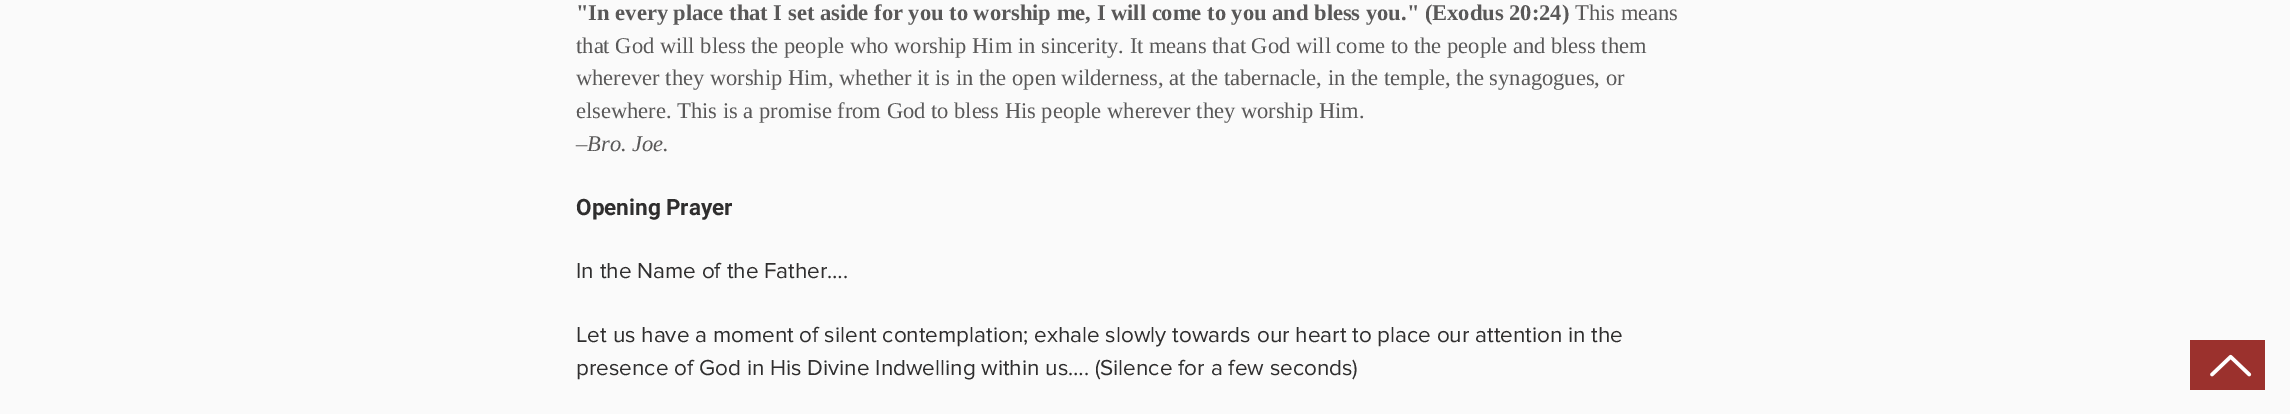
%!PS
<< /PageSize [2290 414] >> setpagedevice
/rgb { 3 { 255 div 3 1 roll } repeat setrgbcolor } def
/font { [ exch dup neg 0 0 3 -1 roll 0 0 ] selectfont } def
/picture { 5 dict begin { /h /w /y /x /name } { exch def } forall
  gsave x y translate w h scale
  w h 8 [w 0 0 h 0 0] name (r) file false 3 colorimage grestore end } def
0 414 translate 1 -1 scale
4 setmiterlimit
250 250 250 rgb
0 0 2290 414 rectfill
155 49 45 rgb
2190 340 75 50 rectfill
(img/1.rgb) 2210 354 42 23 picture
/LiberationSerif-Bold 22.5 font
89 88 88 rgb
576 20 moveto ("In every place that I set aside for you to worship me, I will come to you and bless you." \(Exodus 20:24\)) show
/LiberationSerif-Regular 22.5 font
[
  [(This means) 1575 20]
  [(that God will bless the people who worship Him in sincerity. It means that God will come to the people and bless them) 576 53]
  [(wherever they worship Him, whether it is in the open wilderness, at the tabernacle, in the temple, the synagogues, or) 576 85]
  [(elsewhere. This is a promise from God to bless His people wherever they worship Him.) 576 118]
] { aload pop moveto show } forall
/LiberationSerif-Italic 22.5 font
576 151 moveto (–Bro. Joe.) show
/Roboto-Bold 22.5 font
47 46 46 rgb
576 215 moveto (Opening Prayer) show
/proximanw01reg-Regular 22.5 font
[
  [(In the Name of the Father….) 576 278]
  [(Let us have a moment of silent contemplation; exhale slowly towards our heart to place our attention in the) 576 342]
  [(presence of God in His Divine Indwelling within us…. \(Silence for a few seconds\)) 576 375]
] { aload pop moveto show } forall
showpage
